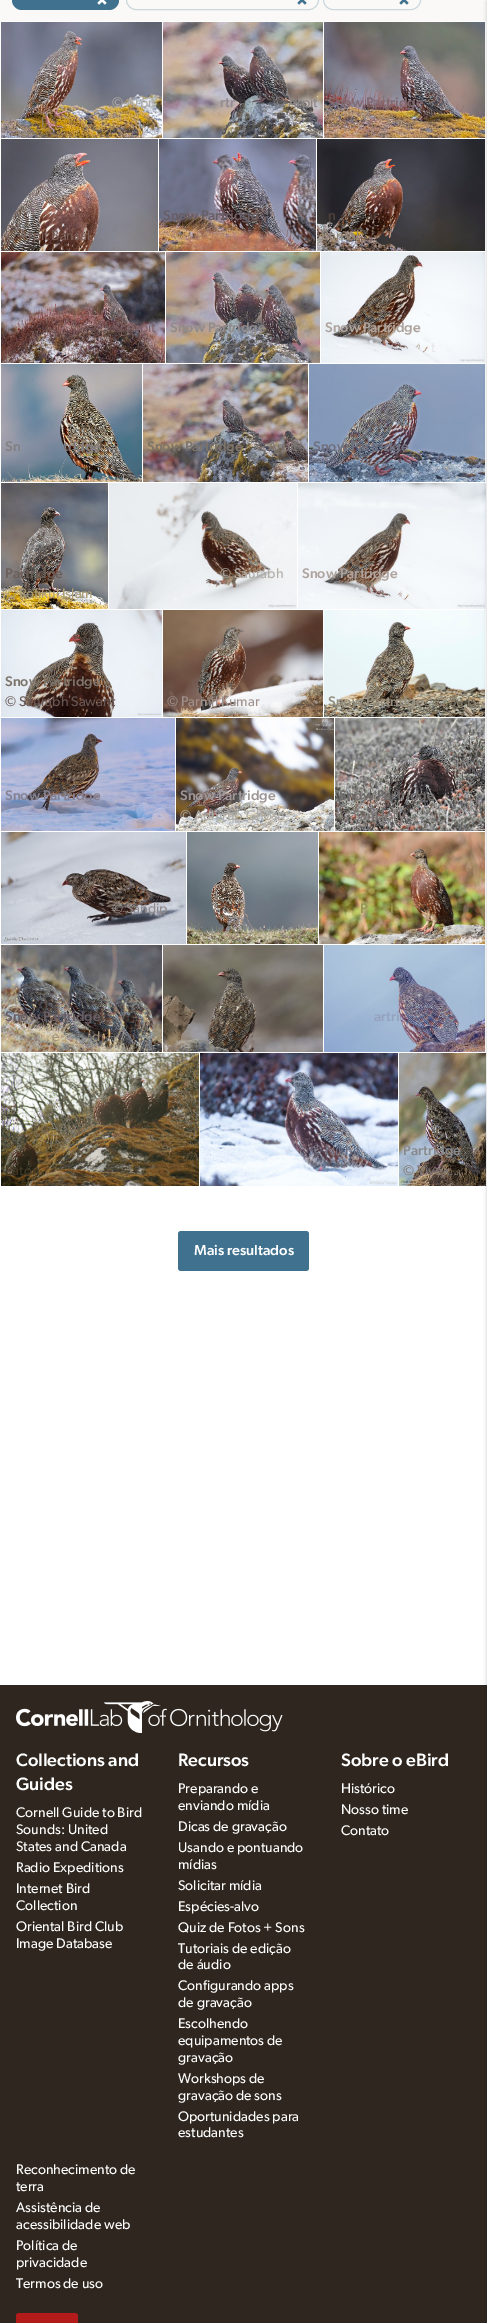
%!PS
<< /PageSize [487 2323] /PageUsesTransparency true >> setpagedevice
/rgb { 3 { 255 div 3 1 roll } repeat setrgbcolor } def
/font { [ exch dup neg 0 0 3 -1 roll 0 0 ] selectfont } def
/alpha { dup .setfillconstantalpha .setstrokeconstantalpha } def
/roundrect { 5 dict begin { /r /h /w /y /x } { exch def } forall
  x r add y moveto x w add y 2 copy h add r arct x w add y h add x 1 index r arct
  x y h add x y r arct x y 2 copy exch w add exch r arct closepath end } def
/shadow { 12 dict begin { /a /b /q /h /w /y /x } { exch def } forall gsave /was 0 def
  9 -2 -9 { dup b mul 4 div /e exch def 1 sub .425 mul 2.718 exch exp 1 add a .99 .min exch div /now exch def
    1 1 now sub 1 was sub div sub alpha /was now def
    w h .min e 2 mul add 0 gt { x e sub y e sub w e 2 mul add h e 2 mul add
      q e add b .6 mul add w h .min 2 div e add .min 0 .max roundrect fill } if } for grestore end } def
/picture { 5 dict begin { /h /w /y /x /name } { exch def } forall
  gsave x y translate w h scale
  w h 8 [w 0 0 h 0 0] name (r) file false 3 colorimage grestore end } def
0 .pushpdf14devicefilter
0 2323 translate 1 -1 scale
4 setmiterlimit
255 255 255 rgb
0 0 487 2323 rectfill
250 249 247 rgb
0 0 487 21 rectfill
64 113 143 rgb
12 -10 107 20 10 roundrect fill
(img/1.rgb) 97 0 10 5 picture
204 215 221 rgb
126.5 -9.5 192 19 9.5 roundrect stroke
(img/2.rgb) 297 0 10 5 picture
323.5 -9.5 97 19 9.5 roundrect stroke
(img/2.rgb) 399 0 10 5 picture
(img/3.rgb) 1 22 161 116 picture
(img/4.rgb) 163 22 160 116 picture
(img/5.rgb) 324 22 161 116 picture
(img/6.rgb) 1 139 157 112 picture
(img/7.rgb) 159 139 157 112 picture
(img/8.rgb) 317 139 168 112 picture
(img/9.rgb) 1 252 164 111 picture
(img/10.rgb) 166 252 154 111 picture
(img/11.rgb) 321 252 164 111 picture
(img/12.rgb) 1 364 141 118 picture
(img/13.rgb) 143 364 165 118 picture
(img/14.rgb) 309 364 176 118 picture
(img/15.rgb) 1 483 107 126 picture
(img/16.rgb) 109 483 188 126 picture
(img/17.rgb) 298 483 188 126 picture
(img/18.rgb) 1 610 161 107 picture
(img/19.rgb) 163 610 160 107 picture
(img/20.rgb) 324 610 161 107 picture
(img/21.rgb) 1 718 174 113 picture
(img/22.rgb) 176 718 158 113 picture
(img/23.rgb) 335 718 150 113 picture
(img/24.rgb) 1 832 185 112 picture
(img/25.rgb) 187 832 131 112 picture
(img/26.rgb) 319 832 166 112 picture
(img/27.rgb) 1 945 161 107 picture
(img/28.rgb) 163 945 160 107 picture
(img/29.rgb) 324 945 161 107 picture
(img/30.rgb) 1 1053 198 133 picture
(img/31.rgb) 200 1053 198 133 picture
(img/32.rgb) 399 1053 87 133 picture
64 113 143 rgb
178 1231 131 40 3 roundrect fill
46 38 31 rgb
0 1685 487 638 rectfill
0 0 0 rgb
487 2 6 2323 0 2 0.2 shadow
(img/33.rgb) 16 1701 267 32 picture
179 27 27 rgb
16 2313 62 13 3 roundrect fill
/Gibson-Regular 14 font
176 173 167 rgb
112 107 moveto (© Arpit) show
147 130 100 rgb
41 127 moveto (l) show
/Gibson-Medium 14 font
147 139 147 rgb
220 107 moveto (rtr) show
/Gibson-Regular 14 font
138 132 131 rgb
274 107 moveto (© Arpit) show
/Gibson-Medium 14 font
128 105 113 rgb
328 107 moveto (Snow Partridge) show
/Gibson-Regular 14 font
120 95 87 rgb
5 240 moveto (© Arpit Bansal) show
/Gibson-Medium 14 font
105 94 102 rgb
163 220 moveto (Snow Partridge) show
78 62 58 rgb
328 220 moveto (n) show
366 220 moveto (ar) show
/Gibson-Regular 14 font
148 135 122 rgb
321 240 moveto (Bansal) show
124 98 103 rgb
112 332 moveto (© Arpit) show
/Gibson-Medium 14 font
145 139 140 rgb
170 332 moveto (Snow Partridge) show
174 163 157 rgb
325 332 moveto (Snow Partridge) show
/Gibson-Regular 14 font
228 229 233 rgb
431 352 moveto (t) show
/Gibson-Medium 14 font
130 128 131 rgb
5 451 moveto (Sn) show
63 451 moveto (tridge) show
124 115 105 rgb
147 451 moveto (Snow Partridge) show
/Gibson-Regular 14 font
125 117 115 rgb
254 451 moveto (© Arpit) show
/Gibson-Medium 14 font
112 113 128 rgb
313 451 moveto (Snow Partridge) show
107 95 90 rgb
5 578 moveto (Partridge) show
/Gibson-Regular 14 font
173 158 117 rgb
5 598 moveto (© Rofikul Islam) show
176 173 167 rgb
220 578 moveto (© Saurabh) show
/Gibson-Medium 14 font
174 163 157 rgb
302 578 moveto (Snow Partridge) show
124 115 105 rgb
5 686 moveto (Snow Partridge) show
/Gibson-Regular 14 font
104 87 84 rgb
5 706 moveto (© Saurabh Sawant) show
161 146 141 rgb
167 706 moveto (© Parmil Kumar) show
/Gibson-Medium 14 font
150 142 126 rgb
328 706 moveto (Snow Partridge) show
/Gibson-Regular 14 font
130 120 101 rgb
435 706 moveto (© Su Li) show
/Gibson-Medium 14 font
133 130 147 rgb
5 800 moveto (Snow Partridge) show
159 151 151 rgb
180 800 moveto (Snow Partridge) show
/Gibson-Regular 14 font
176 173 167 rgb
180 820 moveto (© Adhirup Ghosh) show
/Gibson-Medium 14 font
111 107 106 rgb
339 800 moveto (Snow Partridge) show
/Gibson-Regular 14 font
125 117 115 rgb
339 820 moveto (© Sam Jolly) show
145 139 140 rgb
112 913 moveto (© Sandip) show
/Gibson-Medium 14 font
152 147 78 rgb
360 913 moveto (P) show
390 913 moveto (i) show
105 94 102 rgb
5 1021 moveto (Snow Partridge) show
/Gibson-Regular 14 font
156 146 127 rgb
52 1041 moveto (e) show
92 1041 moveto (d) show
/Gibson-Medium 14 font
148 162 191 rgb
374 1021 moveto (artri) show
/Gibson-Regular 14 font
67 57 36 rgb
5 1175 moveto (Eaton) show
112 113 128 rgb
311 1155 moveto (© Nikhil) show
/Gibson-Medium 14 font
136 138 142 rgb
403 1155 moveto (Partridge) show
/Gibson-Regular 14 font
125 117 115 rgb
403 1175 moveto (© Vivek…) show
/Gibson-Medium 14.5 font
255 255 255 rgb
194 1255 moveto (Mais resultados) show
/Gibson-Medium 18 font
16 1766 moveto (Collections and) show
16 1790 moveto (Guides) show
/Gibson-Regular 14 font
[
  [(Cornell Guide to Bird) 16 1817]
  [(Sounds: United) 16 1834]
  [(States and Canada) 16 1851]
  [(Radio Expeditions) 16 1872]
  [(Internet Bird) 16 1893]
  [(Collection) 16 1910]
  [(Oriental Bird Club) 16 1931]
  [(Image Database) 16 1948]
] { aload pop moveto show } forall
/Gibson-Medium 18 font
178 1766 moveto (Recursos) show
/Gibson-Regular 14 font
[
  [(Preparando e) 178 1793]
  [(enviando mídia) 178 1810]
  [(Dicas de gravação) 178 1831]
  [(Usando e pontuando) 178 1852]
  [(mídias) 178 1869]
  [(Solicitar mídia) 178 1890]
  [(Espécies-alvo) 178 1911]
  [(Quiz de Fotos + Sons) 178 1932]
  [(Tutoriais de edição) 178 1953]
  [(de áudio) 178 1969]
  [(Configurando apps) 178 1990]
  [(de gravação) 178 2007]
  [(Escolhendo) 178 2028]
  [(equipamentos de) 178 2045]
  [(gravação) 178 2062]
  [(Workshops de) 178 2083]
  [(gravação de sons) 178 2100]
  [(Oportunidades para) 178 2121]
  [(estudantes) 178 2137]
] { aload pop moveto show } forall
/Gibson-Medium 18 font
341 1766 moveto (Sobre o eBird) show
/Gibson-Regular 14 font
[
  [(Histórico) 341 1793]
  [(Nosso time) 341 1814]
  [(Contato) 341 1835]
  [(Reconhecimento de) 16 2174]
  [(terra) 16 2191]
  [(Assistência de) 16 2212]
  [(acessibilidade web) 16 2229]
  [(Política de) 16 2250]
  [(privacidade) 16 2267]
  [(Termos de uso) 16 2288]
] { aload pop moveto show } forall
.poppdf14devicefilter showpage
